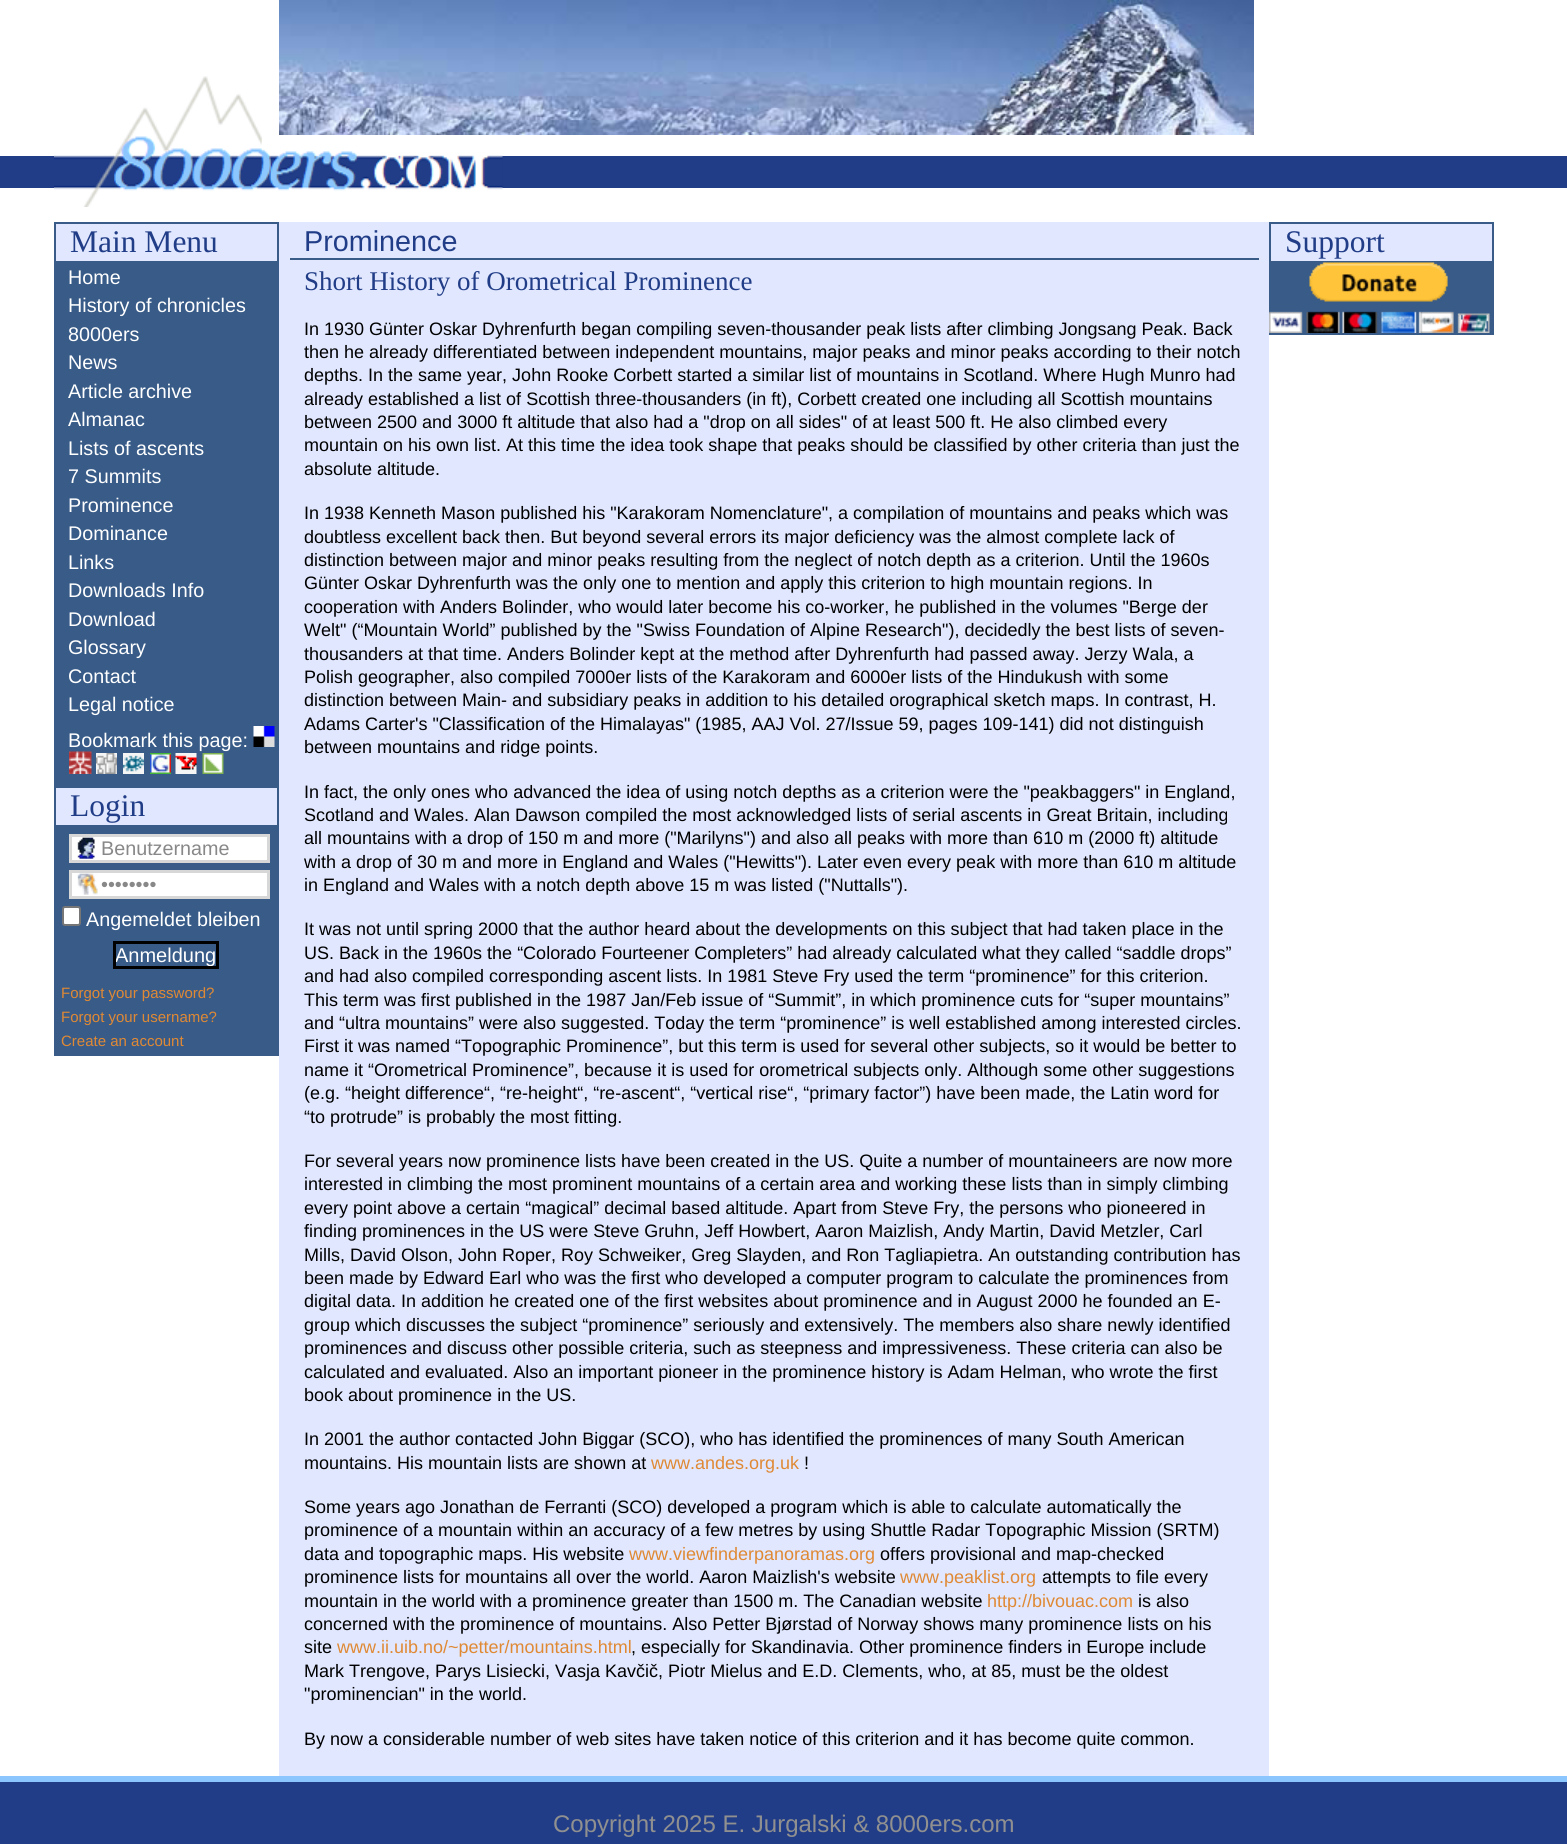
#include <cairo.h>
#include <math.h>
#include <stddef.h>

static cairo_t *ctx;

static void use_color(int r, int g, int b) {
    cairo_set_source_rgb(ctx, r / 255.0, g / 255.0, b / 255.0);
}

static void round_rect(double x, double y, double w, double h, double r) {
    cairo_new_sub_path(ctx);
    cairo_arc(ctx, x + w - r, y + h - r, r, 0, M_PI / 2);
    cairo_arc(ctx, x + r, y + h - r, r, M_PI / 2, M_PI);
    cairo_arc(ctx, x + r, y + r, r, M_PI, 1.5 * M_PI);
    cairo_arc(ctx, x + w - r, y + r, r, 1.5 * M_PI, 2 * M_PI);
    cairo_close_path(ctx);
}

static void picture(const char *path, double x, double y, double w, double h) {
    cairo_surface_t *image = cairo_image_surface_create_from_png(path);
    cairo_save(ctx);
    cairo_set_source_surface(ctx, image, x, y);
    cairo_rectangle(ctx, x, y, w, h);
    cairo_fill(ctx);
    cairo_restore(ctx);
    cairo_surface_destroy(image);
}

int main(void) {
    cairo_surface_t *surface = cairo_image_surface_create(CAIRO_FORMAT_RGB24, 1567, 1844);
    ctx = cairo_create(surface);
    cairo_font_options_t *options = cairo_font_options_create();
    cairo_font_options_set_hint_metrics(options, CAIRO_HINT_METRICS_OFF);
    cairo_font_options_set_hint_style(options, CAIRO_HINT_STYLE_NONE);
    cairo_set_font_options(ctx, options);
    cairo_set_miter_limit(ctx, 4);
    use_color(255, 255, 255);
    cairo_paint(ctx);
    use_color(33, 61, 135);
    cairo_rectangle(ctx, 0, 156, 1567, 32);
    cairo_fill(ctx);
    picture("img1.png", 54, 76, 449, 131);
    picture("img2.png", 279, 0, 975, 135);
    use_color(224, 231, 254);
    cairo_rectangle(ctx, 55, 223, 223, 39);
    cairo_fill_preserve(ctx);
    use_color(56, 91, 136);
    cairo_stroke(ctx);
    cairo_select_font_face(ctx, "Liberation Serif", CAIRO_FONT_SLANT_NORMAL, CAIRO_FONT_WEIGHT_NORMAL);
    cairo_set_font_size(ctx, 31.5);
    use_color(33, 61, 135);
    cairo_move_to(ctx, 70, 252);
    cairo_show_text(ctx, "Main Menu");
    use_color(56, 91, 136);
    cairo_rectangle(ctx, 54, 263, 225, 523);
    cairo_fill(ctx);
    cairo_select_font_face(ctx, "Liberation Sans", CAIRO_FONT_SLANT_NORMAL, CAIRO_FONT_WEIGHT_NORMAL);
    cairo_set_font_size(ctx, 19.75);
    use_color(255, 255, 255);
    cairo_move_to(ctx, 68, 284);
    cairo_show_text(ctx, "Home");
    cairo_move_to(ctx, 68, 312);
    cairo_show_text(ctx, "History of chronicles");
    cairo_move_to(ctx, 68, 341);
    cairo_show_text(ctx, "8000ers");
    cairo_move_to(ctx, 68, 369);
    cairo_show_text(ctx, "News");
    cairo_move_to(ctx, 68, 398);
    cairo_show_text(ctx, "Article archive");
    cairo_move_to(ctx, 68, 426);
    cairo_show_text(ctx, "Almanac");
    cairo_move_to(ctx, 68, 455);
    cairo_show_text(ctx, "Lists of ascents");
    cairo_move_to(ctx, 68, 483);
    cairo_show_text(ctx, "7 Summits");
    cairo_move_to(ctx, 68, 512);
    cairo_show_text(ctx, "Prominence");
    cairo_move_to(ctx, 68, 540);
    cairo_show_text(ctx, "Dominance");
    cairo_move_to(ctx, 68, 569);
    cairo_show_text(ctx, "Links");
    cairo_move_to(ctx, 68, 597);
    cairo_show_text(ctx, "Downloads Info");
    cairo_move_to(ctx, 68, 626);
    cairo_show_text(ctx, "Download");
    cairo_move_to(ctx, 68, 654);
    cairo_show_text(ctx, "Glossary");
    cairo_move_to(ctx, 68, 683);
    cairo_show_text(ctx, "Contact");
    cairo_move_to(ctx, 68, 711);
    cairo_show_text(ctx, "Legal notice");
    cairo_move_to(ctx, 68, 747);
    cairo_show_text(ctx, "Bookmark this page:");
    picture("img3.png", 253, 726, 22, 21);
    picture("img4.png", 69, 751, 23, 23);
    picture("img5.png", 96, 753, 21, 21);
    picture("img6.png", 123, 753, 21, 21);
    picture("img7.png", 150, 753, 21, 21);
    picture("img8.png", 175, 753, 22, 21);
    picture("img9.png", 202, 753, 22, 21);
    use_color(56, 91, 136);
    cairo_rectangle(ctx, 54, 827, 225, 229);
    cairo_fill(ctx);
    use_color(224, 231, 254);
    cairo_rectangle(ctx, 55, 787, 223, 39);
    cairo_fill_preserve(ctx);
    use_color(56, 91, 136);
    cairo_stroke(ctx);
    cairo_select_font_face(ctx, "Liberation Serif", CAIRO_FONT_SLANT_NORMAL, CAIRO_FONT_WEIGHT_NORMAL);
    cairo_set_font_size(ctx, 31.5);
    use_color(33, 61, 135);
    cairo_move_to(ctx, 70, 816);
    cairo_show_text(ctx, "Login");
    use_color(255, 255, 255);
    cairo_rectangle(ctx, 72, 837, 195, 23);
    cairo_fill(ctx);
    picture("img10.png", 77, 837, 18, 22);
    cairo_rectangle(ctx, 70.5, 835.5, 198, 26);
    use_color(215, 215, 215);
    cairo_set_line_width(ctx, 3);
    cairo_stroke(ctx);
    cairo_select_font_face(ctx, "Liberation Sans", CAIRO_FONT_SLANT_NORMAL, CAIRO_FONT_WEIGHT_NORMAL);
    cairo_set_font_size(ctx, 19.75);
    use_color(136, 136, 136);
    cairo_move_to(ctx, 101, 855);
    cairo_show_text(ctx, "Benutzername");
    use_color(255, 255, 255);
    cairo_rectangle(ctx, 72, 873, 195, 23);
    cairo_fill(ctx);
    picture("img11.png", 77, 873, 21, 22);
    cairo_rectangle(ctx, 70.5, 871.5, 198, 26);
    use_color(215, 215, 215);
    cairo_stroke(ctx);
    use_color(136, 136, 136);
    cairo_move_to(ctx, 101, 891);
    cairo_show_text(ctx, "••••••••");
    use_color(255, 255, 255);
    round_rect(63, 907, 17, 18, 2);
    cairo_fill_preserve(ctx);
    use_color(118, 118, 118);
    cairo_set_line_width(ctx, 2);
    cairo_stroke(ctx);
    use_color(255, 255, 255);
    cairo_move_to(ctx, 86, 926);
    cairo_show_text(ctx, "Angemeldet bleiben");
    cairo_rectangle(ctx, 114.5, 942.5, 103, 25);
    use_color(0, 0, 0);
    cairo_set_line_width(ctx, 3);
    cairo_stroke(ctx);
    cairo_save(ctx);
    cairo_rectangle(ctx, 116, 944, 100, 22);
    cairo_clip(ctx);
    cairo_set_font_size(ctx, 20);
    use_color(255, 255, 255);
    cairo_move_to(ctx, 115, 962);
    cairo_show_text(ctx, "Anmeldung");
    cairo_restore(ctx);
    cairo_set_font_size(ctx, 15);
    use_color(224, 137, 52);
    cairo_move_to(ctx, 61, 998);
    cairo_show_text(ctx, "Forgot your password?");
    cairo_move_to(ctx, 61, 1022);
    cairo_show_text(ctx, "Forgot your username?");
    cairo_move_to(ctx, 61, 1046);
    cairo_show_text(ctx, "Create an account");
    use_color(224, 231, 254);
    cairo_rectangle(ctx, 279, 222, 990, 1554);
    cairo_fill(ctx);
    use_color(56, 91, 136);
    cairo_rectangle(ctx, 290, 258, 969, 2);
    cairo_fill(ctx);
    cairo_set_font_size(ctx, 28.75);
    use_color(33, 61, 135);
    cairo_move_to(ctx, 304, 251);
    cairo_show_text(ctx, "Prominence");
    cairo_select_font_face(ctx, "Liberation Serif", CAIRO_FONT_SLANT_NORMAL, CAIRO_FONT_WEIGHT_NORMAL);
    cairo_set_font_size(ctx, 27);
    cairo_move_to(ctx, 304, 290);
    cairo_show_text(ctx, "Short History of Orometrical Prominence");
    cairo_select_font_face(ctx, "Liberation Sans", CAIRO_FONT_SLANT_NORMAL, CAIRO_FONT_WEIGHT_NORMAL);
    cairo_set_font_size(ctx, 18);
    use_color(0, 0, 0);
    cairo_move_to(ctx, 304, 335);
    cairo_show_text(ctx, "In 1930 Günter Oskar Dyhrenfurth began compiling seven-thousander peak lists after climbing Jongsang Peak. Back");
    cairo_move_to(ctx, 304, 358);
    cairo_show_text(ctx, "then he already differentiated between independent mountains, major peaks and minor peaks according to their notch");
    cairo_move_to(ctx, 304, 381);
    cairo_show_text(ctx, "depths. In the same year, John Rooke Corbett started a similar list of mountains in Scotland. Where Hugh Munro had");
    cairo_move_to(ctx, 304, 405);
    cairo_show_text(ctx, "already established a list of Scottish three-thousanders (in ft), Corbett created one including all Scottish mountains");
    cairo_move_to(ctx, 304, 428);
    cairo_show_text(ctx, "between 2500 and 3000 ft altitude that also had a \"drop on all sides\" of at least 500 ft. He also climbed every");
    cairo_move_to(ctx, 304, 451);
    cairo_show_text(ctx, "mountain on his own list. At this time the idea took shape that peaks should be classified by other criteria than just the");
    cairo_move_to(ctx, 304, 475);
    cairo_show_text(ctx, "absolute altitude.");
    cairo_move_to(ctx, 304, 519);
    cairo_show_text(ctx, "In 1938 Kenneth Mason published his \"Karakoram Nomenclature\", a compilation of mountains and peaks which was");
    cairo_move_to(ctx, 304, 543);
    cairo_show_text(ctx, "doubtless excellent back then. But beyond several errors its major deficiency was the almost complete lack of");
    cairo_move_to(ctx, 304, 566);
    cairo_show_text(ctx, "distinction between major and minor peaks resulting from the neglect of notch depth as a criterion. Until the 1960s");
    cairo_move_to(ctx, 304, 589);
    cairo_show_text(ctx, "Günter Oskar Dyhrenfurth was the only one to mention and apply this criterion to high mountain regions. In");
    cairo_move_to(ctx, 304, 613);
    cairo_show_text(ctx, "cooperation with Anders Bolinder, who would later become his co-worker, he published in the volumes \"Berge der");
    cairo_move_to(ctx, 304, 636);
    cairo_show_text(ctx, "Welt\" (“Mountain World” published by the \"Swiss Foundation of Alpine Research\"), decidedly the best lists of seven-");
    cairo_move_to(ctx, 304, 660);
    cairo_show_text(ctx, "thousanders at that time. Anders Bolinder kept at the method after Dyhrenfurth had passed away. Jerzy Wala, a");
    cairo_move_to(ctx, 304, 683);
    cairo_show_text(ctx, "Polish geographer, also compiled 7000er lists of the Karakoram and 6000er lists of the Hindukush with some");
    cairo_move_to(ctx, 304, 706);
    cairo_show_text(ctx, "distinction between Main- and subsidiary peaks in addition to his detailed orographical sketch maps. In contrast, H.");
    cairo_move_to(ctx, 304, 730);
    cairo_show_text(ctx, "Adams Carter's \"Classification of the Himalayas\" (1985, AAJ Vol. 27/Issue 59, pages 109-141) did not distinguish");
    cairo_move_to(ctx, 304, 753);
    cairo_show_text(ctx, "between mountains and ridge points.");
    cairo_move_to(ctx, 304, 798);
    cairo_show_text(ctx, "In fact, the only ones who advanced the idea of using notch depths as a criterion were the \"peakbaggers\" in England,");
    cairo_move_to(ctx, 304, 821);
    cairo_show_text(ctx, "Scotland and Wales. Alan Dawson compiled the most acknowledged lists of serial ascents in Great Britain, including");
    cairo_move_to(ctx, 304, 844);
    cairo_show_text(ctx, "all mountains with a drop of 150 m and more (\"Marilyns\") and also all peaks with more than 610 m (2000 ft) altitude");
    cairo_move_to(ctx, 304, 868);
    cairo_show_text(ctx, "with a drop of 30 m and more in England and Wales (\"Hewitts\"). Later even every peak with more than 610 m altitude");
    cairo_move_to(ctx, 304, 891);
    cairo_show_text(ctx, "in England and Wales with a notch depth above 15 m was listed (\"Nuttalls\").");
    cairo_move_to(ctx, 304, 935);
    cairo_show_text(ctx, "It was not until spring 2000 that the author heard about the developments on this subject that had taken place in the");
    cairo_move_to(ctx, 304, 959);
    cairo_show_text(ctx, "US. Back in the 1960s the “Colorado Fourteener Completers” had already calculated what they called “saddle drops”");
    cairo_move_to(ctx, 304, 982);
    cairo_show_text(ctx, "and had also compiled corresponding ascent lists. In 1981 Steve Fry used the term “prominence” for this criterion.");
    cairo_move_to(ctx, 304, 1006);
    cairo_show_text(ctx, "This term was first published in the 1987 Jan/Feb issue of “Summit”, in which prominence cuts for “super mountains”");
    cairo_move_to(ctx, 304, 1029);
    cairo_show_text(ctx, "and “ultra mountains” were also suggested. Today the term “prominence” is well established among interested circles.");
    cairo_move_to(ctx, 304, 1052);
    cairo_show_text(ctx, "First it was named “Topographic Prominence”, but this term is used for several other subjects, so it would be better to");
    cairo_move_to(ctx, 304, 1076);
    cairo_show_text(ctx, "name it “Orometrical Prominence”, because it is used for orometrical subjects only. Although some other suggestions");
    cairo_move_to(ctx, 304, 1099);
    cairo_show_text(ctx, "(e.g. “height difference“, “re-height“, “re-ascent“, “vertical rise“, “primary factor”) have been made, the Latin word for");
    cairo_move_to(ctx, 304, 1123);
    cairo_show_text(ctx, "“to protrude” is probably the most fitting.");
    cairo_move_to(ctx, 304, 1167);
    cairo_show_text(ctx, "For several years now prominence lists have been created in the US. Quite a number of mountaineers are now more");
    cairo_move_to(ctx, 304, 1190);
    cairo_show_text(ctx, "interested in climbing the most prominent mountains of a certain area and working these lists than in simply climbing");
    cairo_move_to(ctx, 304, 1214);
    cairo_show_text(ctx, "every point above a certain “magical” decimal based altitude. Apart from Steve Fry, the persons who pioneered in");
    cairo_move_to(ctx, 304, 1237);
    cairo_show_text(ctx, "finding prominences in the US were Steve Gruhn, Jeff Howbert, Aaron Maizlish, Andy Martin, David Metzler, Carl");
    cairo_move_to(ctx, 304, 1261);
    cairo_show_text(ctx, "Mills, David Olson, John Roper, Roy Schweiker, Greg Slayden, and Ron Tagliapietra. An outstanding contribution has");
    cairo_move_to(ctx, 304, 1284);
    cairo_show_text(ctx, "been made by Edward Earl who was the first who developed a computer program to calculate the prominences from");
    cairo_move_to(ctx, 304, 1307);
    cairo_show_text(ctx, "digital data. In addition he created one of the first websites about prominence and in August 2000 he founded an E-");
    cairo_move_to(ctx, 304, 1331);
    cairo_show_text(ctx, "group which discusses the subject “prominence” seriously and extensively. The members also share newly identified");
    cairo_move_to(ctx, 304, 1354);
    cairo_show_text(ctx, "prominences and discuss other possible criteria, such as steepness and impressiveness. These criteria can also be");
    cairo_move_to(ctx, 304, 1378);
    cairo_show_text(ctx, "calculated and evaluated. Also an important pioneer in the prominence history is Adam Helman, who wrote the first");
    cairo_move_to(ctx, 304, 1401);
    cairo_show_text(ctx, "book about prominence in the US.");
    cairo_move_to(ctx, 304, 1445);
    cairo_show_text(ctx, "In 2001 the author contacted John Biggar (SCO), who has identified the prominences of many South American");
    cairo_move_to(ctx, 304, 1469);
    cairo_show_text(ctx, "mountains. His mountain lists are shown at");
    use_color(224, 137, 52);
    cairo_move_to(ctx, 651, 1469);
    cairo_show_text(ctx, "www.andes.org.uk");
    use_color(0, 0, 0);
    cairo_move_to(ctx, 804, 1469);
    cairo_show_text(ctx, "!");
    cairo_move_to(ctx, 304, 1513);
    cairo_show_text(ctx, "Some years ago Jonathan de Ferranti (SCO) developed a program which is able to calculate automatically the");
    cairo_move_to(ctx, 304, 1536);
    cairo_show_text(ctx, "prominence of a mountain within an accuracy of a few metres by using Shuttle Radar Topographic Mission (SRTM)");
    cairo_move_to(ctx, 304, 1560);
    cairo_show_text(ctx, "data and topographic maps. His website");
    use_color(224, 137, 52);
    cairo_move_to(ctx, 629, 1560);
    cairo_show_text(ctx, "www.viewfinderpanoramas.org");
    use_color(0, 0, 0);
    cairo_move_to(ctx, 880, 1560);
    cairo_show_text(ctx, "offers provisional and map-checked");
    cairo_move_to(ctx, 304, 1583);
    cairo_show_text(ctx, "prominence lists for mountains all over the world. Aaron Maizlish's website");
    use_color(224, 137, 52);
    cairo_move_to(ctx, 900, 1583);
    cairo_show_text(ctx, "www.peaklist.org");
    use_color(0, 0, 0);
    cairo_move_to(ctx, 1042, 1583);
    cairo_show_text(ctx, "attempts to file every");
    cairo_move_to(ctx, 304, 1607);
    cairo_show_text(ctx, "mountain in the world with a prominence greater than 1500 m. The Canadian website");
    use_color(224, 137, 52);
    cairo_move_to(ctx, 987, 1607);
    cairo_show_text(ctx, "http://bivouac.com");
    use_color(0, 0, 0);
    cairo_move_to(ctx, 1138, 1607);
    cairo_show_text(ctx, "is also");
    cairo_move_to(ctx, 304, 1630);
    cairo_show_text(ctx, "concerned with the prominence of mountains. Also Petter Bjørstad of Norway shows many prominence lists on his");
    cairo_move_to(ctx, 304, 1653);
    cairo_show_text(ctx, "site");
    use_color(224, 137, 52);
    cairo_move_to(ctx, 337, 1653);
    cairo_show_text(ctx, "www.ii.uib.no/~petter/mountains.html");
    use_color(0, 0, 0);
    cairo_move_to(ctx, 631, 1653);
    cairo_show_text(ctx, ", especially for Skandinavia. Other prominence finders in Europe include");
    cairo_move_to(ctx, 304, 1677);
    cairo_show_text(ctx, "Mark Trengove, Parys Lisiecki, Vasja Kavčič, Piotr Mielus and E.D. Clements, who, at 85, must be the oldest");
    cairo_move_to(ctx, 304, 1700);
    cairo_show_text(ctx, "\"prominencian\" in the world.");
    cairo_move_to(ctx, 304, 1745);
    cairo_show_text(ctx, "By now a considerable number of web sites have taken notice of this criterion and it has become quite common.");
    use_color(56, 91, 136);
    cairo_rectangle(ctx, 1269, 263, 225, 72);
    cairo_fill(ctx);
    use_color(224, 231, 254);
    cairo_rectangle(ctx, 1270, 223, 223, 39);
    cairo_fill_preserve(ctx);
    use_color(56, 91, 136);
    cairo_set_line_width(ctx, 2);
    cairo_stroke(ctx);
    cairo_select_font_face(ctx, "Liberation Serif", CAIRO_FONT_SLANT_NORMAL, CAIRO_FONT_WEIGHT_NORMAL);
    cairo_set_font_size(ctx, 31.5);
    use_color(33, 61, 135);
    cairo_move_to(ctx, 1285, 252);
    cairo_show_text(ctx, "Support");
    picture("img12.png", 1269, 262, 221, 71);
    cairo_rectangle(ctx, 0, 1782, 1567, 62);
    cairo_fill(ctx);
    use_color(140, 198, 255);
    cairo_rectangle(ctx, 0, 1776, 1567, 6);
    cairo_fill(ctx);
    cairo_select_font_face(ctx, "Liberation Sans", CAIRO_FONT_SLANT_NORMAL, CAIRO_FONT_WEIGHT_NORMAL);
    cairo_set_font_size(ctx, 24);
    use_color(144, 144, 144);
    cairo_move_to(ctx, 553, 1832);
    cairo_show_text(ctx, "Copyright 2025 E. Jurgalski & 8000ers.com");
    cairo_surface_write_to_png(surface, "result.png");
    cairo_font_options_destroy(options);
    cairo_destroy(ctx);
    cairo_surface_destroy(surface);
    return 0;
}
